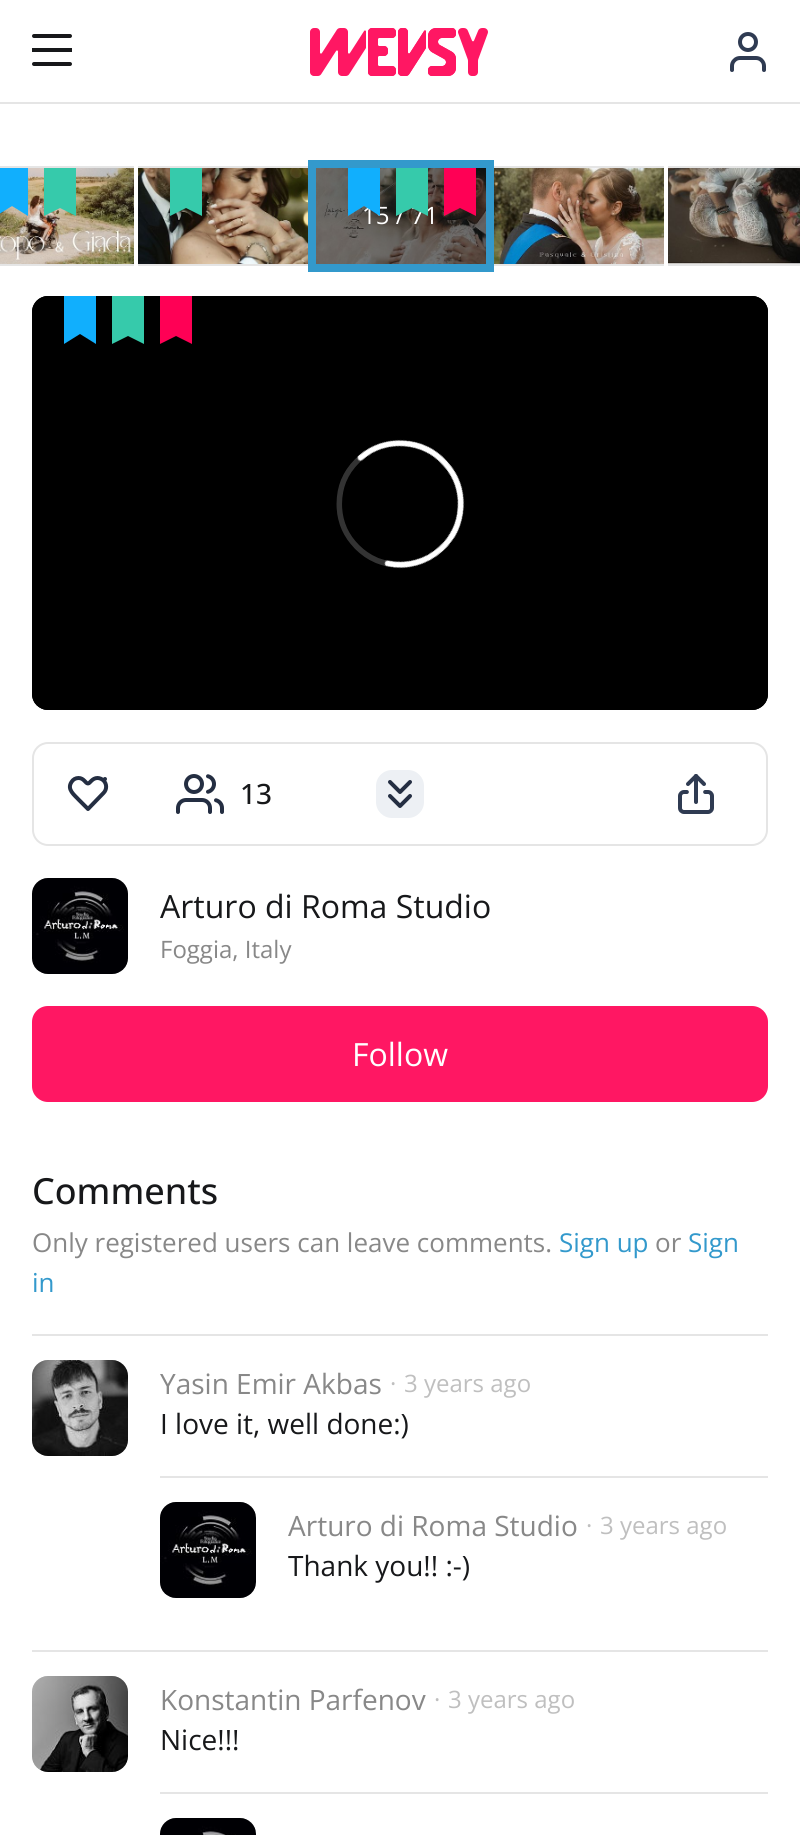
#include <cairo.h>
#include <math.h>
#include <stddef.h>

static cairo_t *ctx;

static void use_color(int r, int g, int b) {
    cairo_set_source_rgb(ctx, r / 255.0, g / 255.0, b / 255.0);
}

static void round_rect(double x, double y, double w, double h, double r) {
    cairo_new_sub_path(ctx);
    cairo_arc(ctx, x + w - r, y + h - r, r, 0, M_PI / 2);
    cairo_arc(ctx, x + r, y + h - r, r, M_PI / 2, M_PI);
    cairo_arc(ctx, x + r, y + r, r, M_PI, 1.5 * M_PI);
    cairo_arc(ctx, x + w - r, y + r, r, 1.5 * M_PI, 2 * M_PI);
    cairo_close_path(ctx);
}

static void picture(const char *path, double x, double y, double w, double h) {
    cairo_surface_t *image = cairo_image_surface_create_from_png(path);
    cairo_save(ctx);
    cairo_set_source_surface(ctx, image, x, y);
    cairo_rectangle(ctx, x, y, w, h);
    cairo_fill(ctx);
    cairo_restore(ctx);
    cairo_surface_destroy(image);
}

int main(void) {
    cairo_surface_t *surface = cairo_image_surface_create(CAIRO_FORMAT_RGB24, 800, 1835);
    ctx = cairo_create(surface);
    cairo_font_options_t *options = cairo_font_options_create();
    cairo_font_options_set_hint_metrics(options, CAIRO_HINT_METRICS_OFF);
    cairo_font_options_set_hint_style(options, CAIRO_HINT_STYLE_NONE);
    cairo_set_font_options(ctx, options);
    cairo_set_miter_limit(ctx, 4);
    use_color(255, 255, 255);
    cairo_paint(ctx);
    use_color(229, 229, 229);
    cairo_rectangle(ctx, 0, 102, 800, 2);
    cairo_fill(ctx);
    use_color(23, 24, 26);
    cairo_rectangle(ctx, 32, 48, 40, 4);
    cairo_fill(ctx);
    round_rect(32, 34, 40, 4, 2);
    cairo_fill(ctx);
    round_rect(32, 62, 40, 4, 2);
    cairo_fill(ctx);
    picture("img1.png", 310, 28, 178, 48);
    picture("img2.png", 730, 32, 36, 40);
    use_color(229, 229, 229);
    cairo_rectangle(ctx, 0, 166, 134, 2);
    cairo_fill(ctx);
    cairo_rectangle(ctx, 0, 264, 134, 2);
    cairo_fill(ctx);
    picture("img3.png", 0, 168, 134, 96);
    use_color(17, 175, 253);
    cairo_new_path(ctx);
    cairo_move_to(ctx, -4, 168);
    cairo_line_to(ctx, -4, 216);
    cairo_line_to(ctx, 12, 206);
    cairo_line_to(ctx, 28, 216);
    cairo_line_to(ctx, 28, 168);
    cairo_close_path(ctx);
    cairo_fill(ctx);
    use_color(54, 202, 171);
    cairo_new_path(ctx);
    cairo_move_to(ctx, 44, 168);
    cairo_line_to(ctx, 44, 216);
    cairo_line_to(ctx, 60, 208);
    cairo_line_to(ctx, 76, 216);
    cairo_line_to(ctx, 76, 168);
    cairo_close_path(ctx);
    cairo_fill(ctx);
    use_color(229, 229, 229);
    cairo_rectangle(ctx, 138, 166, 170, 2);
    cairo_fill(ctx);
    cairo_rectangle(ctx, 138, 264, 170, 2);
    cairo_fill(ctx);
    picture("img4.png", 138, 168, 170, 96);
    use_color(54, 202, 171);
    cairo_new_path(ctx);
    cairo_move_to(ctx, 170, 168);
    cairo_line_to(ctx, 170, 216);
    cairo_line_to(ctx, 186, 208);
    cairo_line_to(ctx, 202, 216);
    cairo_line_to(ctx, 202, 168);
    cairo_close_path(ctx);
    cairo_fill(ctx);
    cairo_rectangle(ctx, 312, 164, 178, 104);
    use_color(51, 153, 204);
    cairo_set_line_width(ctx, 8);
    cairo_stroke(ctx);
    use_color(23, 24, 26);
    cairo_rectangle(ctx, 316, 168, 170, 96);
    cairo_fill(ctx);
    picture("img5.png", 316, 168, 170, 96);
    cairo_select_font_face(ctx, "Open Sans", CAIRO_FONT_SLANT_NORMAL, CAIRO_FONT_WEIGHT_NORMAL);
    cairo_set_font_size(ctx, 24);
    use_color(255, 255, 255);
    cairo_move_to(ctx, 362, 224);
    cairo_show_text(ctx, "15 / 71");
    use_color(17, 175, 253);
    cairo_new_path(ctx);
    cairo_move_to(ctx, 348, 168);
    cairo_line_to(ctx, 348, 216);
    cairo_line_to(ctx, 364, 206);
    cairo_line_to(ctx, 380, 216);
    cairo_line_to(ctx, 380, 168);
    cairo_close_path(ctx);
    cairo_fill(ctx);
    use_color(54, 202, 171);
    cairo_new_path(ctx);
    cairo_move_to(ctx, 396, 168);
    cairo_line_to(ctx, 396, 216);
    cairo_line_to(ctx, 412, 208);
    cairo_line_to(ctx, 428, 216);
    cairo_line_to(ctx, 428, 168);
    cairo_close_path(ctx);
    cairo_fill(ctx);
    use_color(255, 0, 85);
    cairo_new_path(ctx);
    cairo_move_to(ctx, 444, 168);
    cairo_line_to(ctx, 444, 216);
    cairo_line_to(ctx, 460, 208);
    cairo_line_to(ctx, 476, 216);
    cairo_line_to(ctx, 476, 168);
    cairo_close_path(ctx);
    cairo_fill(ctx);
    use_color(229, 229, 229);
    cairo_rectangle(ctx, 494, 166, 170, 2);
    cairo_fill(ctx);
    cairo_rectangle(ctx, 494, 264, 170, 2);
    cairo_fill(ctx);
    picture("img6.png", 494, 168, 170, 96);
    cairo_rectangle(ctx, 668, 166, 132, 2);
    cairo_fill(ctx);
    cairo_rectangle(ctx, 668, 264, 132, 2);
    cairo_fill(ctx);
    picture("img7.png", 668, 168, 132, 96);
    use_color(0, 0, 0);
    round_rect(32, 296, 736, 414, 16);
    cairo_fill(ctx);
    picture("img8.png", 32, 296, 736, 414);
    use_color(17, 175, 253);
    cairo_new_path(ctx);
    cairo_move_to(ctx, 64, 296);
    cairo_line_to(ctx, 64, 344);
    cairo_line_to(ctx, 80, 334);
    cairo_line_to(ctx, 96, 344);
    cairo_line_to(ctx, 96, 296);
    cairo_close_path(ctx);
    cairo_fill(ctx);
    use_color(54, 202, 171);
    cairo_new_path(ctx);
    cairo_move_to(ctx, 112, 296);
    cairo_line_to(ctx, 112, 344);
    cairo_line_to(ctx, 128, 336);
    cairo_line_to(ctx, 144, 344);
    cairo_line_to(ctx, 144, 296);
    cairo_close_path(ctx);
    cairo_fill(ctx);
    use_color(255, 0, 85);
    cairo_new_path(ctx);
    cairo_move_to(ctx, 160, 296);
    cairo_line_to(ctx, 160, 344);
    cairo_line_to(ctx, 176, 336);
    cairo_line_to(ctx, 192, 344);
    cairo_line_to(ctx, 192, 296);
    cairo_close_path(ctx);
    cairo_fill(ctx);
    round_rect(33, 743, 734, 102, 15);
    use_color(229, 229, 229);
    cairo_set_line_width(ctx, 2);
    cairo_stroke(ctx);
    cairo_new_path(ctx);
    cairo_move_to(ctx, 97.5, 778);
    cairo_curve_to(ctx, 99.5, 778, 102, 779, 103.5, 780.5);
    cairo_line_to(ctx, 105, 779);
    cairo_line_to(ctx, 103.5, 780.5);
    cairo_curve_to(ctx, 107, 784, 107, 789.5, 103.5, 793);
    cairo_line_to(ctx, 88, 809);
    cairo_line_to(ctx, 79, 800);
    cairo_curve_to(ctx, 74.5, 795, 66.5, 789.5, 71.5, 782);
    cairo_curve_to(ctx, 73, 779.5, 75.5, 778, 78.5, 778);
    cairo_curve_to(ctx, 84, 778, 85.5, 783.5, 88, 783.5);
    cairo_curve_to(ctx, 90, 783.5, 92, 778, 97.5, 778);
    cairo_close_path(ctx);
    use_color(36, 46, 66);
    cairo_set_line_width(ctx, 4);
    cairo_set_line_cap(ctx, CAIRO_LINE_CAP_ROUND);
    cairo_set_line_join(ctx, CAIRO_LINE_JOIN_ROUND);
    cairo_stroke(ctx);
    picture("img9.png", 176, 774, 48, 40);
    cairo_select_font_face(ctx, "Open Sans Medium", CAIRO_FONT_SLANT_NORMAL, CAIRO_FONT_WEIGHT_NORMAL);
    cairo_set_font_size(ctx, 28);
    use_color(23, 24, 26);
    cairo_move_to(ctx, 240, 804);
    cairo_show_text(ctx, "13");
    picture("img10.png", 376, 770, 48, 48);
    picture("img11.png", 678, 774, 36, 40);
    round_rect(33, 879, 94, 94, 15);
    use_color(229, 229, 229);
    cairo_set_line_width(ctx, 2);
    cairo_set_line_cap(ctx, CAIRO_LINE_CAP_BUTT);
    cairo_set_line_join(ctx, CAIRO_LINE_JOIN_MITER);
    cairo_stroke(ctx);
    picture("img12.png", 32, 878, 96, 96);
    cairo_select_font_face(ctx, "Open Sans", CAIRO_FONT_SLANT_NORMAL, CAIRO_FONT_WEIGHT_NORMAL);
    cairo_set_font_size(ctx, 32);
    use_color(23, 24, 26);
    cairo_move_to(ctx, 160, 918);
    cairo_show_text(ctx, "Arturo di Roma Studio");
    cairo_set_font_size(ctx, 24);
    use_color(136, 136, 136);
    cairo_move_to(ctx, 160, 958);
    cairo_show_text(ctx, "Foggia, Italy");
    use_color(255, 23, 99);
    round_rect(32, 1006, 736, 96, 16);
    cairo_fill(ctx);
    cairo_set_font_size(ctx, 32);
    use_color(255, 255, 255);
    cairo_move_to(ctx, 352, 1066);
    cairo_show_text(ctx, "Follow");
    cairo_select_font_face(ctx, "Open Sans Medium", CAIRO_FONT_SLANT_NORMAL, CAIRO_FONT_WEIGHT_NORMAL);
    cairo_set_font_size(ctx, 36);
    use_color(23, 24, 26);
    cairo_move_to(ctx, 32, 1204);
    cairo_show_text(ctx, "Comments");
    cairo_select_font_face(ctx, "Open Sans", CAIRO_FONT_SLANT_NORMAL, CAIRO_FONT_WEIGHT_NORMAL);
    cairo_set_font_size(ctx, 26);
    use_color(136, 136, 136);
    cairo_move_to(ctx, 32, 1252);
    cairo_show_text(ctx, "Only registered users can leave comments.");
    use_color(51, 153, 204);
    cairo_move_to(ctx, 559, 1252);
    cairo_show_text(ctx, "Sign up");
    use_color(136, 136, 136);
    cairo_move_to(ctx, 655, 1252);
    cairo_show_text(ctx, "or");
    use_color(51, 153, 204);
    cairo_move_to(ctx, 688, 1252);
    cairo_show_text(ctx, "Sign");
    cairo_move_to(ctx, 32, 1292);
    cairo_show_text(ctx, "in");
    use_color(229, 229, 229);
    cairo_rectangle(ctx, 32, 1334, 736, 2);
    cairo_fill(ctx);
    round_rect(33, 1361, 94, 94, 15);
    cairo_stroke(ctx);
    picture("img13.png", 32, 1360, 96, 96);
    cairo_set_font_size(ctx, 28);
    use_color(136, 136, 136);
    cairo_move_to(ctx, 160, 1394);
    cairo_show_text(ctx, "Yasin Emir Akbas");
    cairo_set_font_size(ctx, 24);
    use_color(191, 191, 191);
    cairo_move_to(ctx, 390, 1392);
    cairo_show_text(ctx, "·");
    cairo_move_to(ctx, 404, 1392);
    cairo_show_text(ctx, "3 years ago");
    cairo_set_font_size(ctx, 28);
    use_color(23, 24, 26);
    cairo_move_to(ctx, 160, 1434);
    cairo_show_text(ctx, "I love it, well done:)");
    use_color(229, 229, 229);
    cairo_rectangle(ctx, 160, 1476, 608, 2);
    cairo_fill(ctx);
    round_rect(161, 1503, 94, 94, 15);
    cairo_stroke(ctx);
    picture("img14.png", 160, 1502, 96, 96);
    use_color(136, 136, 136);
    cairo_move_to(ctx, 288, 1536);
    cairo_show_text(ctx, "Arturo di Roma Studio");
    cairo_set_font_size(ctx, 24);
    use_color(191, 191, 191);
    cairo_move_to(ctx, 586, 1534);
    cairo_show_text(ctx, "·");
    cairo_move_to(ctx, 600, 1534);
    cairo_show_text(ctx, "3 years ago");
    cairo_set_font_size(ctx, 28);
    use_color(23, 24, 26);
    cairo_move_to(ctx, 288, 1576);
    cairo_show_text(ctx, "Thank you!! :-)");
    use_color(229, 229, 229);
    cairo_rectangle(ctx, 32, 1650, 736, 2);
    cairo_fill(ctx);
    round_rect(33, 1677, 94, 94, 15);
    cairo_stroke(ctx);
    picture("img15.png", 32, 1676, 96, 96);
    use_color(136, 136, 136);
    cairo_move_to(ctx, 160, 1710);
    cairo_show_text(ctx, "Konstantin Parfenov");
    cairo_set_font_size(ctx, 24);
    use_color(191, 191, 191);
    cairo_move_to(ctx, 434, 1708);
    cairo_show_text(ctx, "·");
    cairo_move_to(ctx, 448, 1708);
    cairo_show_text(ctx, "3 years ago");
    cairo_set_font_size(ctx, 28);
    use_color(23, 24, 26);
    cairo_move_to(ctx, 160, 1750);
    cairo_show_text(ctx, "Nice!!!");
    use_color(229, 229, 229);
    cairo_rectangle(ctx, 160, 1792, 608, 2);
    cairo_fill(ctx);
    round_rect(161, 1819, 94, 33, 15);
    cairo_stroke(ctx);
    picture("img16.png", 160, 1818, 96, 17);
    cairo_surface_write_to_png(surface, "result.png");
    cairo_font_options_destroy(options);
    cairo_destroy(ctx);
    cairo_surface_destroy(surface);
    return 0;
}
